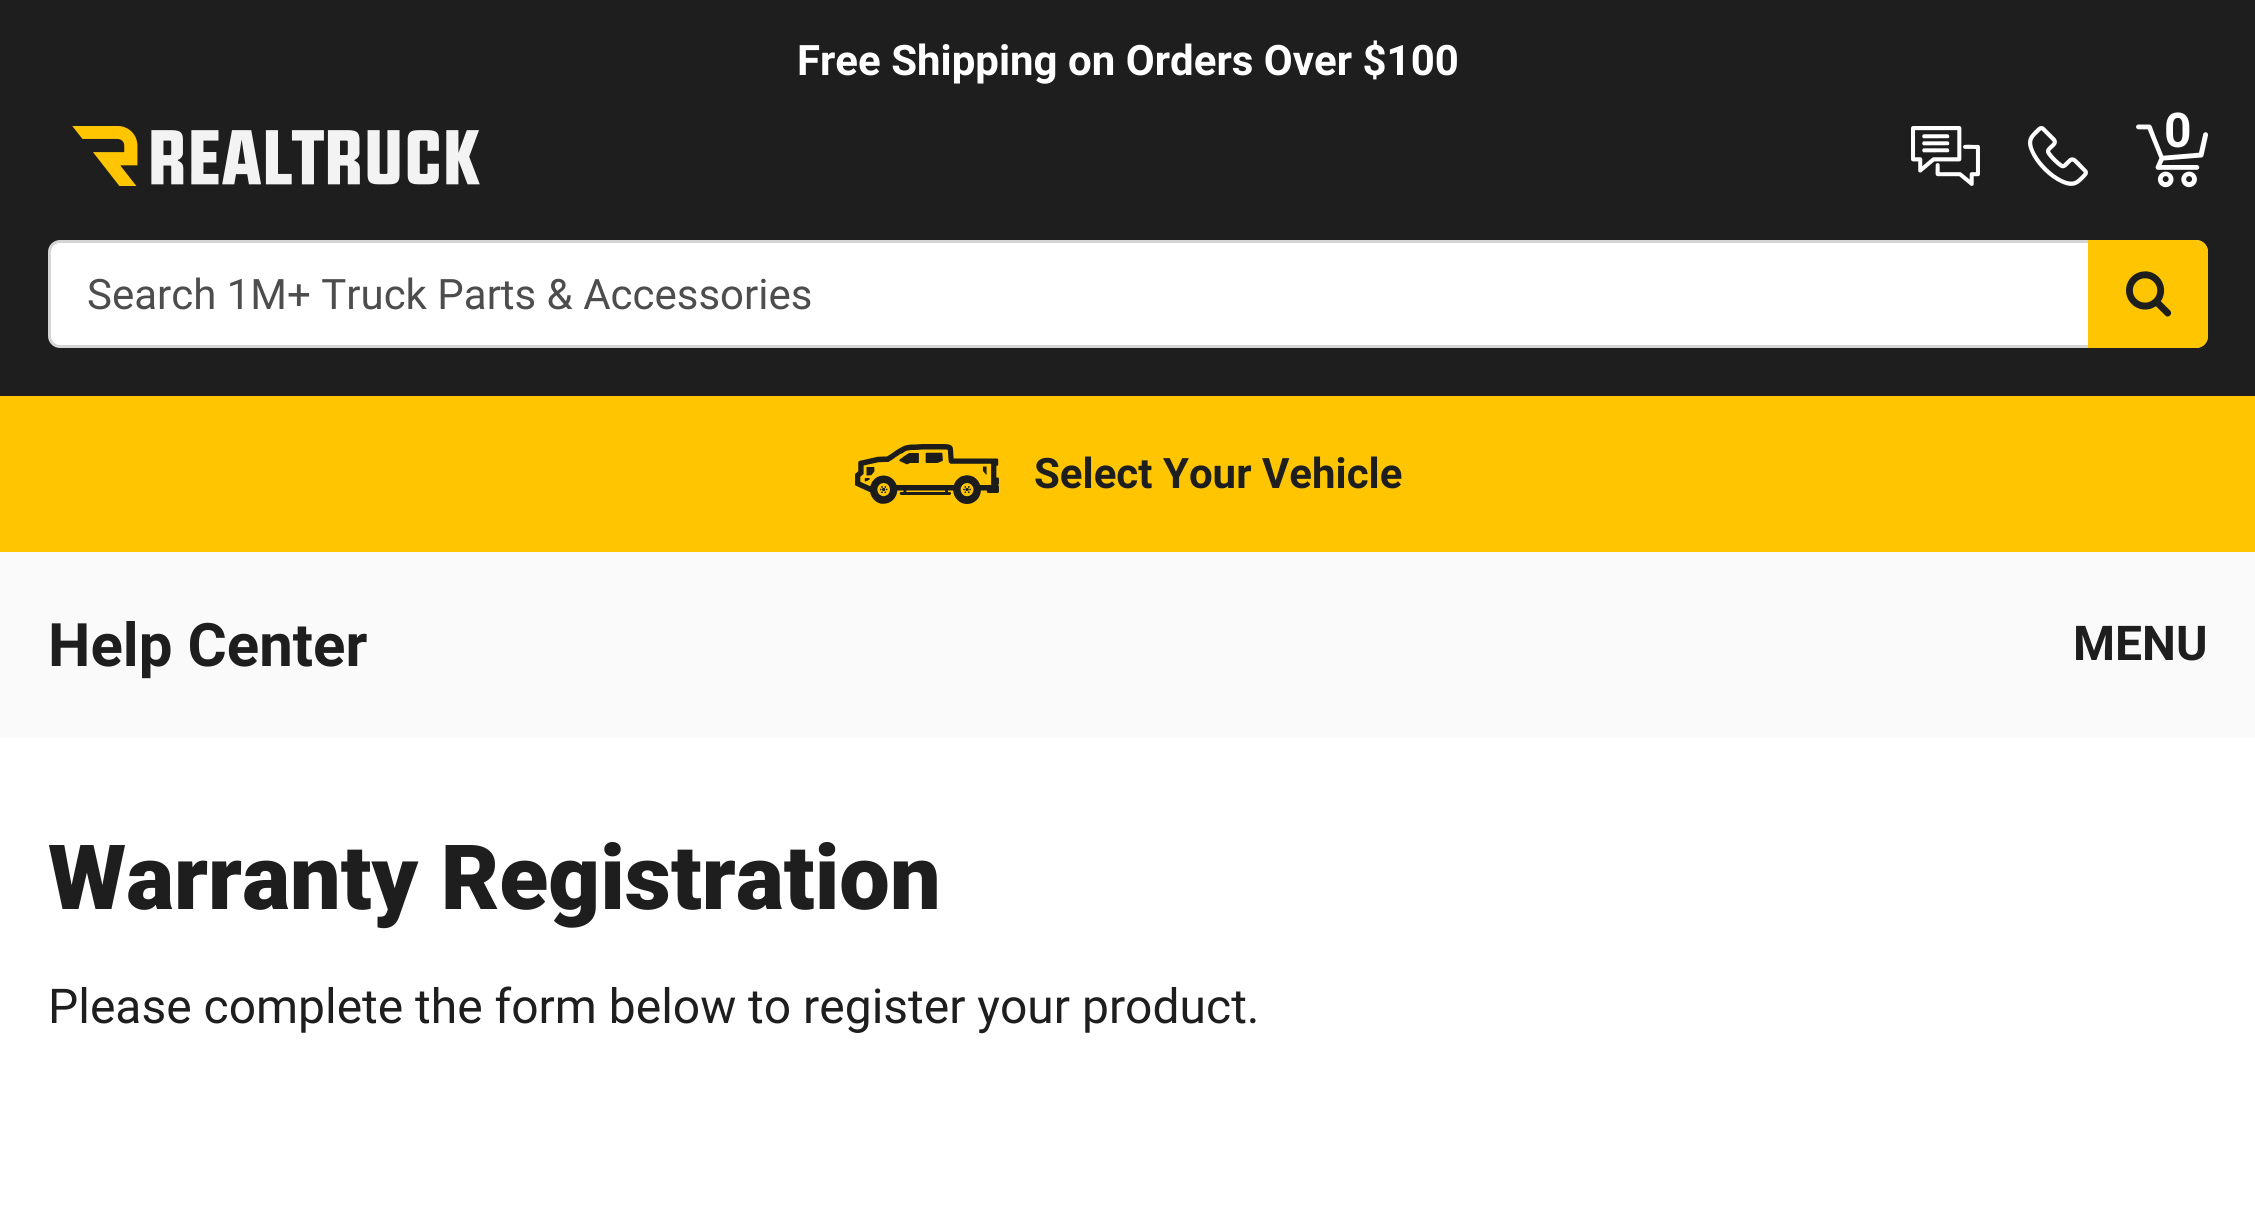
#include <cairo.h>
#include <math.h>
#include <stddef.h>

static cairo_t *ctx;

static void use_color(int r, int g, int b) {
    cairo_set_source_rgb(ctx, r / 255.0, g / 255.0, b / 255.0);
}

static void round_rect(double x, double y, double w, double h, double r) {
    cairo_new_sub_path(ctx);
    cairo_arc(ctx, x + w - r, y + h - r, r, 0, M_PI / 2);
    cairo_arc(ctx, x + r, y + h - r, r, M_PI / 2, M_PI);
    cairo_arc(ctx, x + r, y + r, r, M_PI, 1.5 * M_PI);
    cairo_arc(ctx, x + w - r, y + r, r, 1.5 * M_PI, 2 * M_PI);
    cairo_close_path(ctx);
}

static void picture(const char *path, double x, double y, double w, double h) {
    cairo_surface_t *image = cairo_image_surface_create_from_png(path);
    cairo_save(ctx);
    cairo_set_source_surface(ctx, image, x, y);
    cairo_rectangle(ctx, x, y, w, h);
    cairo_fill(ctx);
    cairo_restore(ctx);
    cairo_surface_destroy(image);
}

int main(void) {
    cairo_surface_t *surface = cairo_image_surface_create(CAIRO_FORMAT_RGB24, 2255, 1217);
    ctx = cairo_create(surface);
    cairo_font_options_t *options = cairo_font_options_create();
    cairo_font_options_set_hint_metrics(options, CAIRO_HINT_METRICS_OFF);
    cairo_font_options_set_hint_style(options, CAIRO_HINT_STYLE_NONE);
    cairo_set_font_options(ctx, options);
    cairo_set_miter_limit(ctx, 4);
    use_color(255, 255, 255);
    cairo_paint(ctx);
    use_color(30, 30, 30);
    cairo_rectangle(ctx, 0, 0, 2255, 396);
    cairo_fill(ctx);
    cairo_select_font_face(ctx, "Roboto", CAIRO_FONT_SLANT_NORMAL, CAIRO_FONT_WEIGHT_BOLD);
    cairo_set_font_size(ctx, 42);
    use_color(255, 255, 255);
    cairo_move_to(ctx, 797, 75);
    cairo_show_text(ctx, "Free Shipping on Orders Over $100");
    picture("img1.png", 72, 126, 408, 60);
    picture("img2.png", 1911, 126, 69, 60);
    picture("img3.png", 2028, 126, 60, 60);
    picture("img4.png", 2136, 124, 72, 64);
    cairo_set_font_size(ctx, 48);
    cairo_move_to(ctx, 2164, 147);
    cairo_show_text(ctx, "0");
    round_rect(49.5, 241.5, 2157, 105, 10.5);
    cairo_fill_preserve(ctx);
    use_color(213, 213, 213);
    cairo_set_line_width(ctx, 3);
    cairo_stroke(ctx);
    cairo_select_font_face(ctx, "Roboto", CAIRO_FONT_SLANT_NORMAL, CAIRO_FONT_WEIGHT_NORMAL);
    cairo_set_font_size(ctx, 42);
    use_color(77, 77, 77);
    cairo_move_to(ctx, 87, 309);
    cairo_show_text(ctx, "Search 1M+ Truck Parts & Accessories");
    use_color(255, 198, 0);
    cairo_new_path(ctx);
    cairo_move_to(ctx, 2089.5, 241.5);
    cairo_line_to(ctx, 2196, 241.5);
    cairo_curve_to(ctx, 2202, 241.5, 2206.5, 246, 2206.5, 252);
    cairo_line_to(ctx, 2206.5, 336);
    cairo_curve_to(ctx, 2206.5, 342, 2202, 346.5, 2196, 346.5);
    cairo_line_to(ctx, 2089.5, 346.5);
    cairo_close_path(ctx);
    cairo_fill_preserve(ctx);
    cairo_stroke(ctx);
    picture("img5.png", 2126, 271, 46, 46);
    cairo_rectangle(ctx, 0, 396, 2255, 156);
    cairo_fill(ctx);
    picture("img6.png", 855, 444, 144, 60);
    cairo_select_font_face(ctx, "Roboto", CAIRO_FONT_SLANT_NORMAL, CAIRO_FONT_WEIGHT_BOLD);
    use_color(30, 30, 30);
    cairo_move_to(ctx, 1034, 488);
    cairo_show_text(ctx, "Select Your Vehicle");
    use_color(250, 250, 250);
    cairo_rectangle(ctx, 0, 552, 2255, 186);
    cairo_fill(ctx);
    cairo_set_font_size(ctx, 60);
    use_color(30, 30, 30);
    cairo_move_to(ctx, 48, 666);
    cairo_show_text(ctx, "Help Center");
    cairo_set_font_size(ctx, 48);
    cairo_move_to(ctx, 2073, 660);
    cairo_show_text(ctx, "MENU");
    cairo_select_font_face(ctx, "Roboto Black", CAIRO_FONT_SLANT_NORMAL, CAIRO_FONT_WEIGHT_NORMAL);
    cairo_set_font_size(ctx, 90);
    cairo_move_to(ctx, 48, 909);
    cairo_show_text(ctx, "Warranty Registration");
    cairo_select_font_face(ctx, "Roboto", CAIRO_FONT_SLANT_NORMAL, CAIRO_FONT_WEIGHT_NORMAL);
    cairo_set_font_size(ctx, 48);
    cairo_move_to(ctx, 48, 1023);
    cairo_show_text(ctx, "Please complete the form below to register your product.");
    cairo_surface_write_to_png(surface, "result.png");
    cairo_font_options_destroy(options);
    cairo_destroy(ctx);
    cairo_surface_destroy(surface);
    return 0;
}
